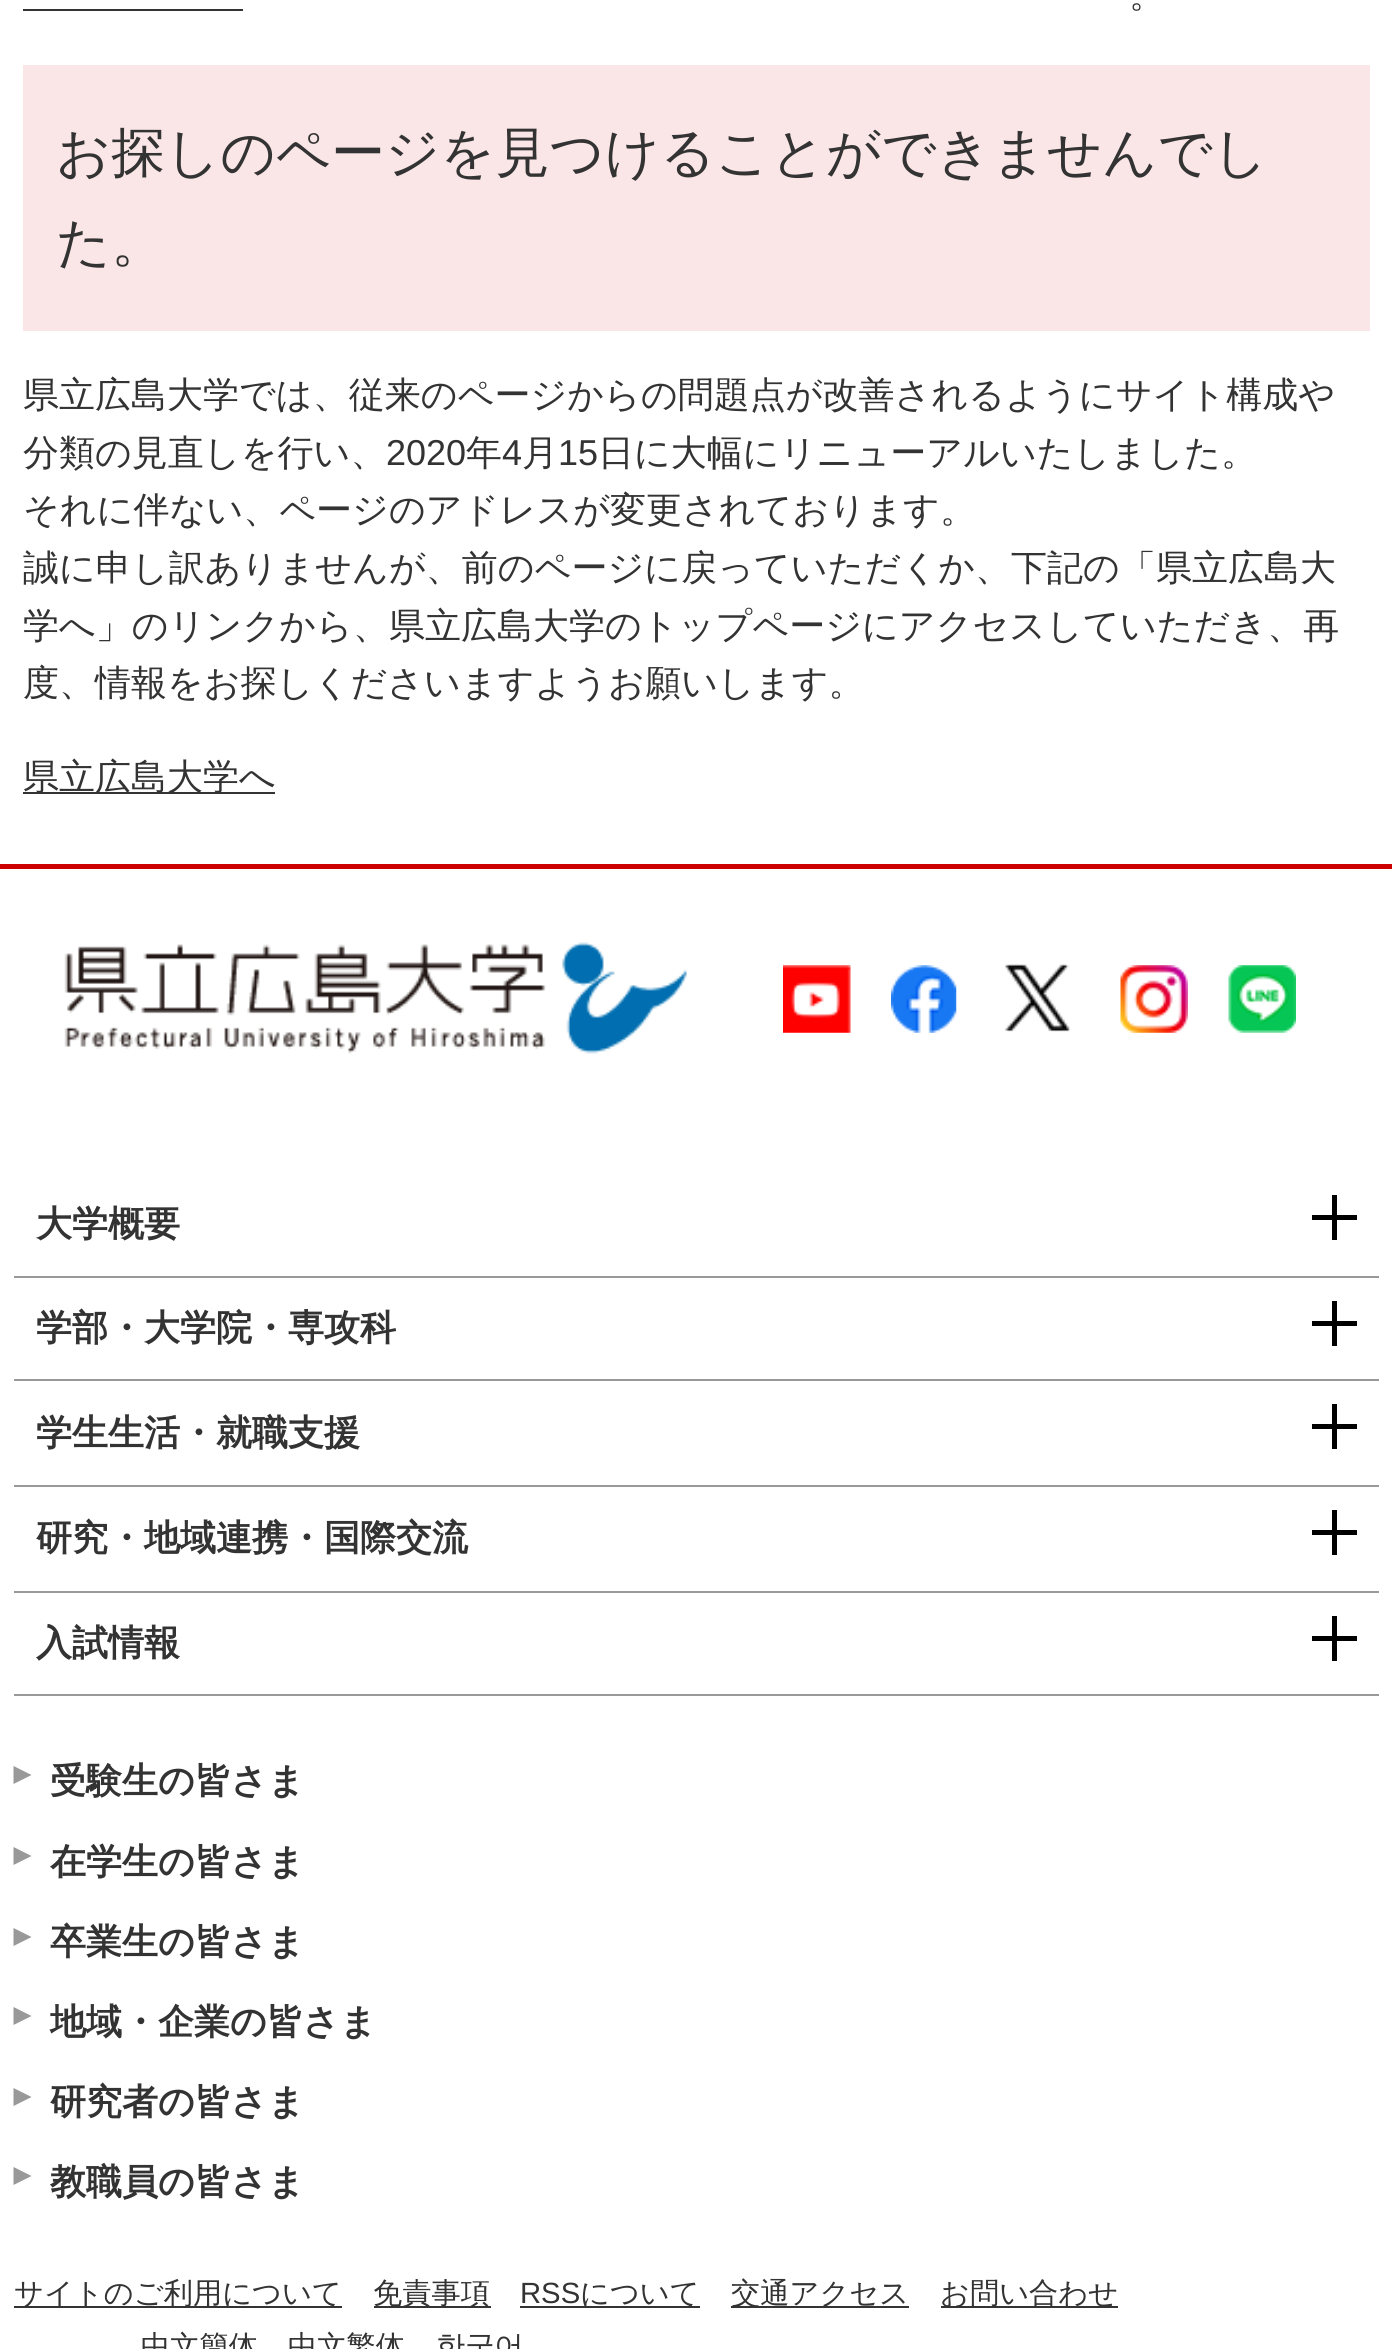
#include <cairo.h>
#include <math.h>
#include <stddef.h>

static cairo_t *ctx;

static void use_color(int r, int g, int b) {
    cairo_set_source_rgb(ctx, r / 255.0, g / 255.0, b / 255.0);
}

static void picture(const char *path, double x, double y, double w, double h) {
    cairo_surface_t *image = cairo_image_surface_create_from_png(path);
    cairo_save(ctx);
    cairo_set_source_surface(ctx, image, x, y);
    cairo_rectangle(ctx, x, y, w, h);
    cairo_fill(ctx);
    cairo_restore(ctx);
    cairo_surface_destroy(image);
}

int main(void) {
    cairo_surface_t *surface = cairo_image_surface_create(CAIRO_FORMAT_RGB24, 1392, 2349);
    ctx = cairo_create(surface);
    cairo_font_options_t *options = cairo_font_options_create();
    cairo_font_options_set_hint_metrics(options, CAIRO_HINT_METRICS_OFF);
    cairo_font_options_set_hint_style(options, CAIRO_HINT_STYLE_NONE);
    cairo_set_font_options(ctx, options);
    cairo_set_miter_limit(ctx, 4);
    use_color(255, 255, 255);
    cairo_paint(ctx);
    use_color(51, 51, 51);
    cairo_rectangle(ctx, 23, 9, 220, 2);
    cairo_fill(ctx);
    cairo_select_font_face(ctx, "WenQuanYi Zen Hei Medium", CAIRO_FONT_SLANT_NORMAL, CAIRO_FONT_WEIGHT_NORMAL);
    cairo_set_font_size(ctx, 36);
    cairo_move_to(ctx, 1129, 7);
    cairo_show_text(ctx, "。");
    use_color(250, 230, 230);
    cairo_rectangle(ctx, 23, 65, 1347, 266);
    cairo_fill(ctx);
    cairo_set_font_size(ctx, 54);
    use_color(51, 51, 51);
    cairo_move_to(ctx, 56, 171);
    cairo_show_text(ctx, "お探しのページを見つけることができませんでし");
    cairo_move_to(ctx, 56, 261);
    cairo_show_text(ctx, "た。");
    cairo_set_font_size(ctx, 36);
    cairo_move_to(ctx, 23, 407);
    cairo_show_text(ctx, "県立広島大学では、従来のページからの問題点が改善されるようにサイト構成や");
    cairo_move_to(ctx, 23, 465);
    cairo_show_text(ctx, "分類の見直しを行い、");
    cairo_select_font_face(ctx, "Liberation Sans", CAIRO_FONT_SLANT_NORMAL, CAIRO_FONT_WEIGHT_NORMAL);
    cairo_move_to(ctx, 386, 465);
    cairo_show_text(ctx, "2020");
    cairo_select_font_face(ctx, "WenQuanYi Zen Hei Medium", CAIRO_FONT_SLANT_NORMAL, CAIRO_FONT_WEIGHT_NORMAL);
    cairo_move_to(ctx, 466, 465);
    cairo_show_text(ctx, "年");
    cairo_select_font_face(ctx, "Liberation Sans", CAIRO_FONT_SLANT_NORMAL, CAIRO_FONT_WEIGHT_NORMAL);
    cairo_move_to(ctx, 502, 465);
    cairo_show_text(ctx, "4");
    cairo_select_font_face(ctx, "WenQuanYi Zen Hei Medium", CAIRO_FONT_SLANT_NORMAL, CAIRO_FONT_WEIGHT_NORMAL);
    cairo_move_to(ctx, 522, 465);
    cairo_show_text(ctx, "月");
    cairo_select_font_face(ctx, "Liberation Sans", CAIRO_FONT_SLANT_NORMAL, CAIRO_FONT_WEIGHT_NORMAL);
    cairo_move_to(ctx, 558, 465);
    cairo_show_text(ctx, "15");
    cairo_select_font_face(ctx, "WenQuanYi Zen Hei Medium", CAIRO_FONT_SLANT_NORMAL, CAIRO_FONT_WEIGHT_NORMAL);
    cairo_move_to(ctx, 598, 465);
    cairo_show_text(ctx, "日に大幅にリニューアルいたしました。");
    cairo_move_to(ctx, 23, 522);
    cairo_show_text(ctx, "それに伴ない、ページのアドレスが変更されております。");
    cairo_move_to(ctx, 23, 580);
    cairo_show_text(ctx, "誠に申し訳ありませんが、前のページに戻っていただくか、下記の「県立広島大");
    cairo_move_to(ctx, 23, 638);
    cairo_show_text(ctx, "学へ」のリンクから、県立広島大学のトップページにアクセスしていただき、再");
    cairo_move_to(ctx, 23, 695);
    cairo_show_text(ctx, "度、情報をお探しくださいますようお願いします。");
    cairo_rectangle(ctx, 23, 792, 252, 2);
    cairo_fill(ctx);
    cairo_move_to(ctx, 23, 789);
    cairo_show_text(ctx, "県立広島大学へ");
    use_color(204, 0, 0);
    cairo_rectangle(ctx, 0, 864, 1392, 5);
    cairo_fill(ctx);
    picture("img1.png", 64, 942, 623, 112);
    picture("img2.png", 783, 965, 68, 68);
    picture("img3.png", 891, 965, 66, 68);
    picture("img4.png", 1005, 964, 65, 68);
    picture("img5.png", 1120, 965, 68, 68);
    picture("img6.png", 1228, 965, 68, 68);
    use_color(153, 153, 153);
    cairo_rectangle(ctx, 14, 1276, 1365, 2);
    cairo_fill(ctx);
    cairo_select_font_face(ctx, "WenQuanYi Zen Hei", CAIRO_FONT_SLANT_NORMAL, CAIRO_FONT_WEIGHT_BOLD);
    use_color(51, 51, 51);
    cairo_move_to(ctx, 36, 1236);
    cairo_show_text(ctx, "大学概要");
    use_color(0, 0, 0);
    cairo_rectangle(ctx, 1312, 1215, 45, 5);
    cairo_fill(ctx);
    cairo_rectangle(ctx, 1332, 1195, 5, 45);
    cairo_fill(ctx);
    use_color(153, 153, 153);
    cairo_rectangle(ctx, 14, 1379, 1365, 2);
    cairo_fill(ctx);
    use_color(51, 51, 51);
    cairo_move_to(ctx, 36, 1340);
    cairo_show_text(ctx, "学部・大学院・専攻科");
    use_color(0, 0, 0);
    cairo_rectangle(ctx, 1312, 1321, 45, 5);
    cairo_fill(ctx);
    cairo_rectangle(ctx, 1332, 1301, 5, 45);
    cairo_fill(ctx);
    use_color(153, 153, 153);
    cairo_rectangle(ctx, 14, 1485, 1365, 2);
    cairo_fill(ctx);
    use_color(51, 51, 51);
    cairo_move_to(ctx, 36, 1445);
    cairo_show_text(ctx, "学生生活・就職支援");
    use_color(0, 0, 0);
    cairo_rectangle(ctx, 1312, 1424, 45, 5);
    cairo_fill(ctx);
    cairo_rectangle(ctx, 1332, 1404, 5, 45);
    cairo_fill(ctx);
    use_color(153, 153, 153);
    cairo_rectangle(ctx, 14, 1591, 1365, 2);
    cairo_fill(ctx);
    use_color(51, 51, 51);
    cairo_move_to(ctx, 36, 1550);
    cairo_show_text(ctx, "研究・地域連携・国際交流");
    use_color(0, 0, 0);
    cairo_rectangle(ctx, 1312, 1530, 45, 5);
    cairo_fill(ctx);
    cairo_rectangle(ctx, 1332, 1510, 5, 45);
    cairo_fill(ctx);
    use_color(153, 153, 153);
    cairo_rectangle(ctx, 14, 1694, 1365, 2);
    cairo_fill(ctx);
    use_color(51, 51, 51);
    cairo_move_to(ctx, 36, 1655);
    cairo_show_text(ctx, "入試情報");
    use_color(0, 0, 0);
    cairo_rectangle(ctx, 1312, 1636, 45, 5);
    cairo_fill(ctx);
    cairo_rectangle(ctx, 1332, 1616, 5, 45);
    cairo_fill(ctx);
    use_color(153, 153, 153);
    cairo_new_path(ctx);
    cairo_move_to(ctx, 13.5, 1784);
    cairo_line_to(ctx, 13.5, 1766);
    cairo_line_to(ctx, 31.5, 1775);
    cairo_close_path(ctx);
    cairo_fill(ctx);
    use_color(51, 51, 51);
    cairo_move_to(ctx, 50, 1793);
    cairo_show_text(ctx, "受験生の皆さま");
    use_color(153, 153, 153);
    cairo_new_path(ctx);
    cairo_move_to(ctx, 13.5, 1865);
    cairo_line_to(ctx, 13.5, 1847);
    cairo_line_to(ctx, 31.5, 1856);
    cairo_close_path(ctx);
    cairo_fill(ctx);
    use_color(51, 51, 51);
    cairo_move_to(ctx, 50, 1874);
    cairo_show_text(ctx, "在学生の皆さま");
    use_color(153, 153, 153);
    cairo_new_path(ctx);
    cairo_move_to(ctx, 13.5, 1946);
    cairo_line_to(ctx, 13.5, 1928);
    cairo_line_to(ctx, 31.5, 1937);
    cairo_close_path(ctx);
    cairo_fill(ctx);
    use_color(51, 51, 51);
    cairo_move_to(ctx, 50, 1954);
    cairo_show_text(ctx, "卒業生の皆さま");
    use_color(153, 153, 153);
    cairo_new_path(ctx);
    cairo_move_to(ctx, 13.5, 2025);
    cairo_line_to(ctx, 13.5, 2007);
    cairo_line_to(ctx, 31.5, 2016);
    cairo_close_path(ctx);
    cairo_fill(ctx);
    use_color(51, 51, 51);
    cairo_move_to(ctx, 50, 2034);
    cairo_show_text(ctx, "地域・企業の皆さま");
    use_color(153, 153, 153);
    cairo_new_path(ctx);
    cairo_move_to(ctx, 13.5, 2106);
    cairo_line_to(ctx, 13.5, 2088);
    cairo_line_to(ctx, 31.5, 2097);
    cairo_close_path(ctx);
    cairo_fill(ctx);
    use_color(51, 51, 51);
    cairo_move_to(ctx, 50, 2114);
    cairo_show_text(ctx, "研究者の皆さま");
    use_color(153, 153, 153);
    cairo_new_path(ctx);
    cairo_move_to(ctx, 13.5, 2185);
    cairo_line_to(ctx, 13.5, 2167);
    cairo_line_to(ctx, 31.5, 2176);
    cairo_close_path(ctx);
    cairo_fill(ctx);
    use_color(51, 51, 51);
    cairo_move_to(ctx, 50, 2194);
    cairo_show_text(ctx, "教職員の皆さま");
    cairo_rectangle(ctx, 14, 2306, 328, 2);
    cairo_fill(ctx);
    cairo_select_font_face(ctx, "WenQuanYi Zen Hei Medium", CAIRO_FONT_SLANT_NORMAL, CAIRO_FONT_WEIGHT_NORMAL);
    cairo_set_font_size(ctx, 29.25);
    cairo_move_to(ctx, 14, 2303);
    cairo_show_text(ctx, "サイトのご利用について");
    cairo_rectangle(ctx, 374, 2306, 117, 2);
    cairo_fill(ctx);
    cairo_move_to(ctx, 373, 2303);
    cairo_show_text(ctx, "免責事項");
    cairo_select_font_face(ctx, "Liberation Sans", CAIRO_FONT_SLANT_NORMAL, CAIRO_FONT_WEIGHT_NORMAL);
    cairo_move_to(ctx, 520, 2303);
    cairo_show_text(ctx, "RSS");
    cairo_rectangle(ctx, 520, 2306, 180, 2);
    cairo_fill(ctx);
    cairo_select_font_face(ctx, "WenQuanYi Zen Hei Medium", CAIRO_FONT_SLANT_NORMAL, CAIRO_FONT_WEIGHT_NORMAL);
    cairo_move_to(ctx, 580, 2303);
    cairo_show_text(ctx, "について");
    cairo_rectangle(ctx, 731, 2306, 178, 2);
    cairo_fill(ctx);
    cairo_move_to(ctx, 731, 2303);
    cairo_show_text(ctx, "交通アクセス");
    cairo_rectangle(ctx, 941, 2306, 177, 2);
    cairo_fill(ctx);
    cairo_move_to(ctx, 940, 2303);
    cairo_show_text(ctx, "お問い合わせ");
    cairo_move_to(ctx, 141, 2356);
    cairo_show_text(ctx, "中文簡体");
    cairo_move_to(ctx, 288, 2356);
    cairo_show_text(ctx, "中文繁体");
    cairo_move_to(ctx, 436, 2356);
    cairo_show_text(ctx, "한국어");
    cairo_surface_write_to_png(surface, "result.png");
    cairo_font_options_destroy(options);
    cairo_destroy(ctx);
    cairo_surface_destroy(surface);
    return 0;
}
